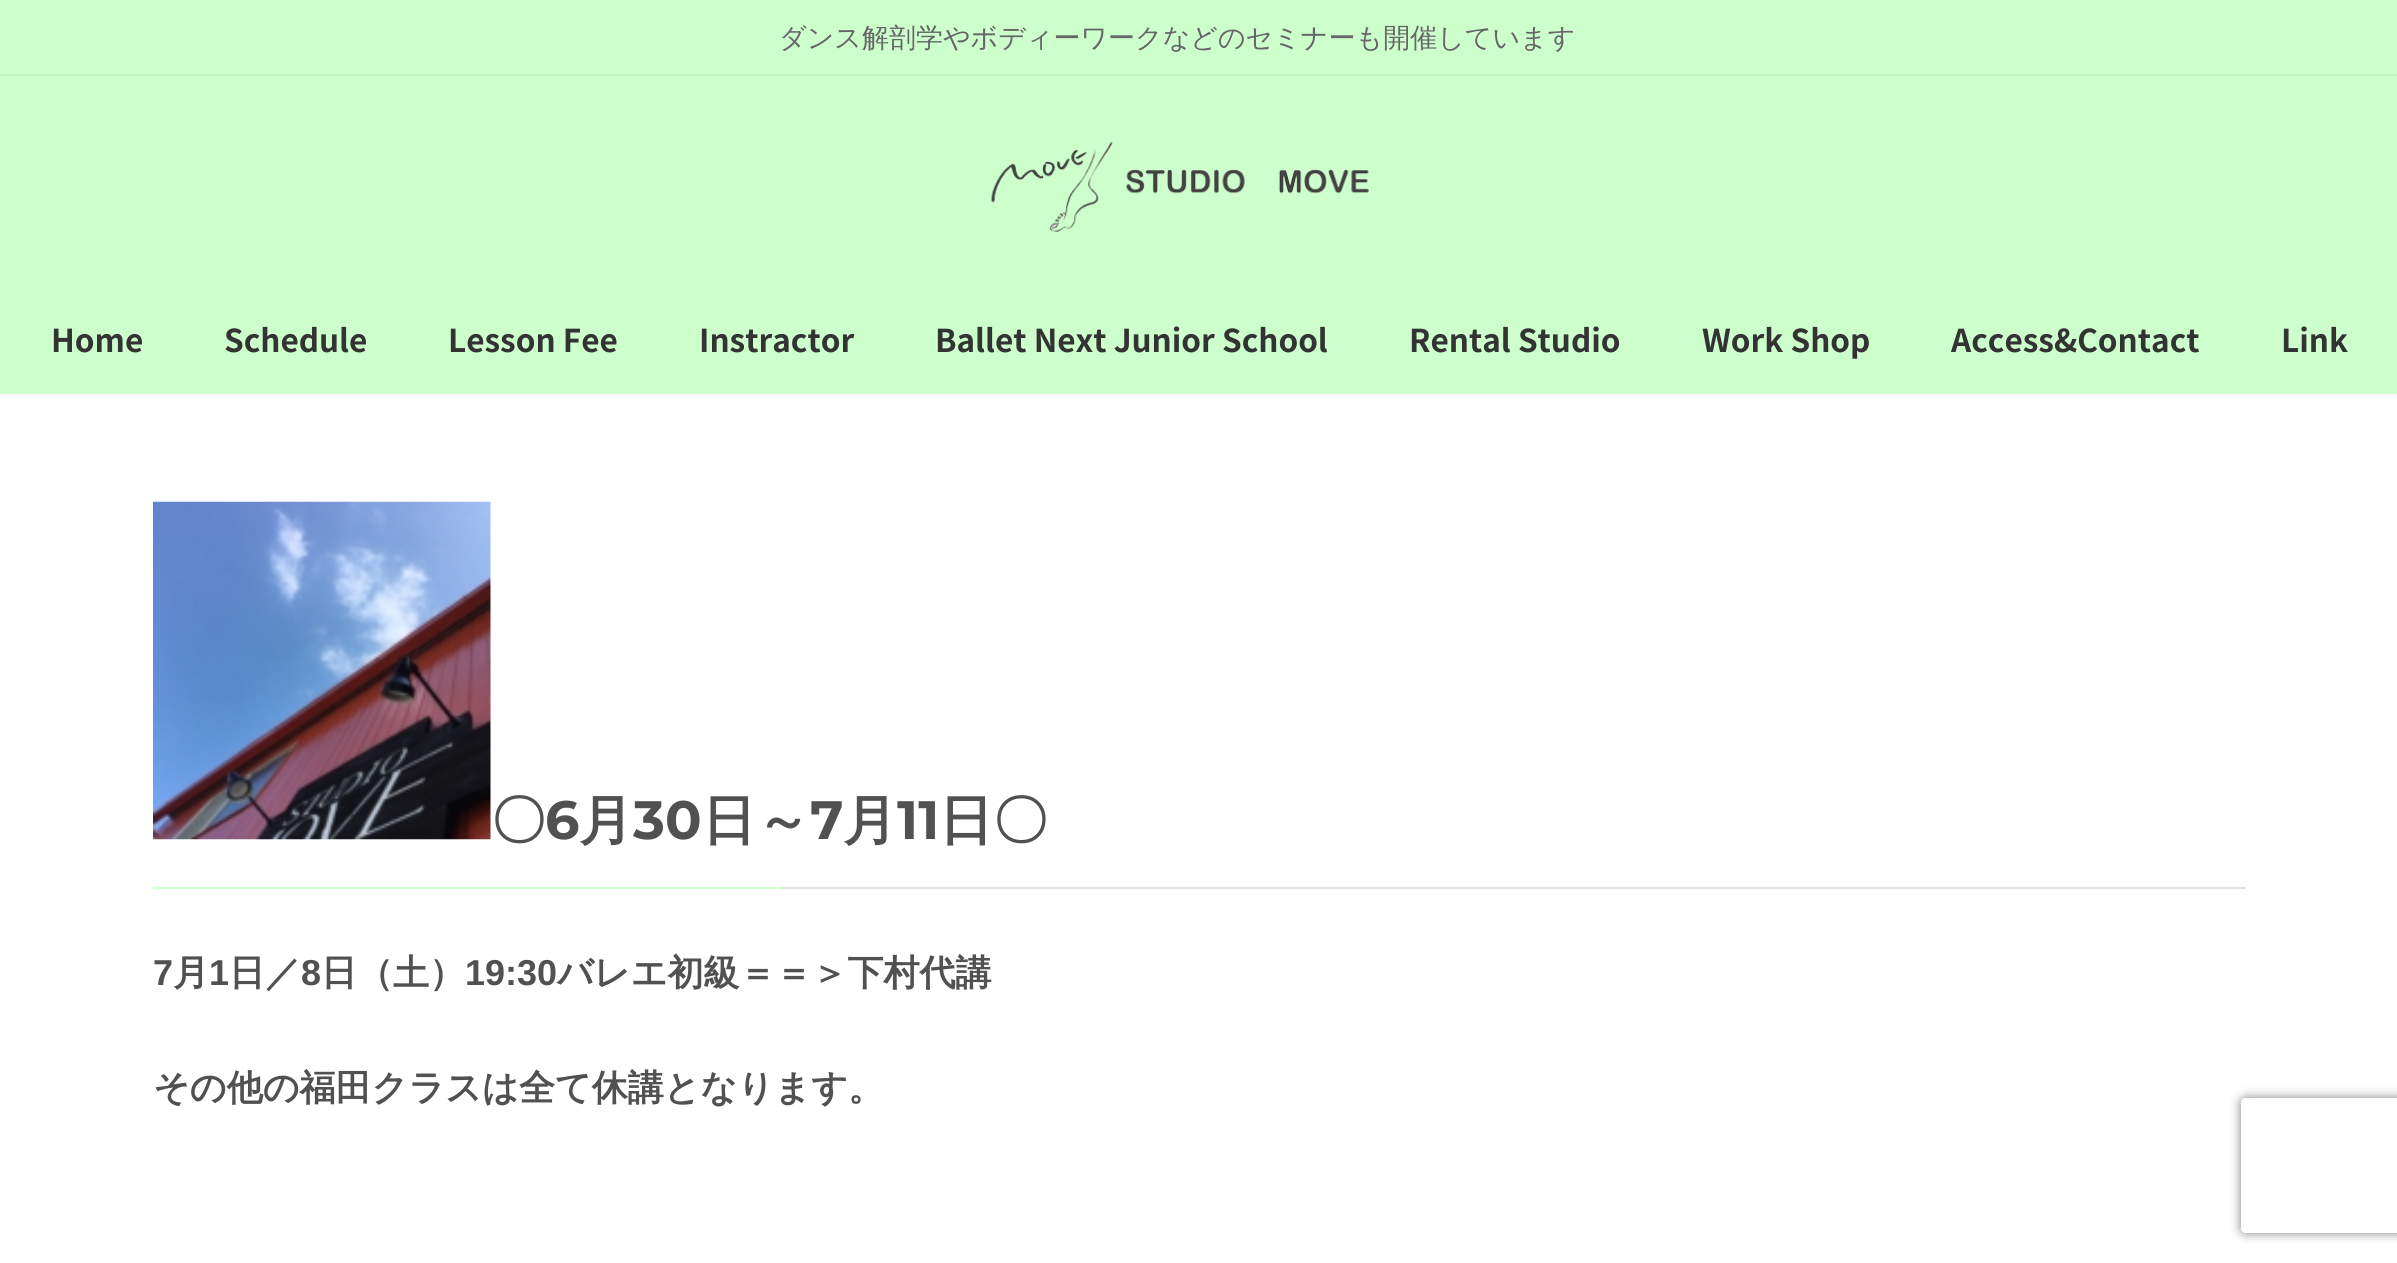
#include <cairo.h>
#include <math.h>
#include <stddef.h>

static cairo_t *ctx;

static void use_color(int r, int g, int b) {
    cairo_set_source_rgb(ctx, r / 255.0, g / 255.0, b / 255.0);
}

static void round_rect(double x, double y, double w, double h, double r) {
    cairo_new_sub_path(ctx);
    cairo_arc(ctx, x + w - r, y + h - r, r, 0, M_PI / 2);
    cairo_arc(ctx, x + r, y + h - r, r, M_PI / 2, M_PI);
    cairo_arc(ctx, x + r, y + r, r, M_PI, 1.5 * M_PI);
    cairo_arc(ctx, x + w - r, y + r, r, 1.5 * M_PI, 2 * M_PI);
    cairo_close_path(ctx);
}

static void shadow(double x, double y, double w, double h, double r, double blur, double alpha) {
    cairo_push_group_with_content(ctx, CAIRO_CONTENT_ALPHA);
    cairo_set_operator(ctx, CAIRO_OPERATOR_SOURCE);
    for (int i = 15; i >= -15 && fmin(w, h) + blur * i / 3 > 0; i -= 2) {
        double e = blur * i / 6;
        cairo_set_source_rgba(ctx, 0, 0, 0, alpha * erfc((i - 1) / 8.5) / 2);
        round_rect(x - e, y - e, w + 2 * e, h + 2 * e, fmax(0, fmin(r + e + blur * .6, fmin(w, h) / 2 + e)));
        cairo_fill(ctx);
    }
    cairo_pattern_t *soft = cairo_pop_group(ctx);
    cairo_mask(ctx, soft);
    cairo_pattern_destroy(soft);
}

static void picture(const char *path, double x, double y, double w, double h) {
    cairo_surface_t *image = cairo_image_surface_create_from_png(path);
    cairo_save(ctx);
    cairo_set_source_surface(ctx, image, x, y);
    cairo_rectangle(ctx, x, y, w, h);
    cairo_fill(ctx);
    cairo_restore(ctx);
    cairo_surface_destroy(image);
}

int main(void) {
    cairo_surface_t *surface = cairo_image_surface_create(CAIRO_FORMAT_RGB24, 2397, 1263);
    ctx = cairo_create(surface);
    cairo_font_options_t *options = cairo_font_options_create();
    cairo_font_options_set_hint_metrics(options, CAIRO_HINT_METRICS_OFF);
    cairo_font_options_set_hint_style(options, CAIRO_HINT_STYLE_NONE);
    cairo_set_font_options(ctx, options);
    cairo_set_miter_limit(ctx, 4);
    use_color(255, 255, 255);
    cairo_paint(ctx);
    use_color(0, 0, 0);
    shadow(0, -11, 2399, 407, 0, 3.5, 0.05);
    use_color(204, 255, 204);
    cairo_rectangle(ctx, 0, 0, 2397, 394);
    cairo_fill(ctx);
    use_color(196, 245, 196);
    cairo_rectangle(ctx, 0, 74, 2397, 2);
    cairo_fill(ctx);
    cairo_select_font_face(ctx, "WenQuanYi Zen Hei Medium", CAIRO_FONT_SLANT_NORMAL, CAIRO_FONT_WEIGHT_NORMAL);
    cairo_set_font_size(ctx, 27);
    use_color(102, 102, 102);
    cairo_move_to(ctx, 779, 47);
    cairo_show_text(ctx, "ダンス解剖学やボディーワークなどのセミナーも開催しています");
    picture("img1.png", 991, 142, 378, 90);
    cairo_select_font_face(ctx, "Noto Sans JP", CAIRO_FONT_SLANT_NORMAL, CAIRO_FONT_WEIGHT_BOLD);
    cairo_set_font_size(ctx, 31.5);
    use_color(51, 51, 51);
    cairo_move_to(ctx, 51, 352);
    cairo_show_text(ctx, "Home");
    cairo_move_to(ctx, 224, 352);
    cairo_show_text(ctx, "Schedule");
    cairo_move_to(ctx, 448, 352);
    cairo_show_text(ctx, "Lesson Fee");
    cairo_move_to(ctx, 699, 352);
    cairo_show_text(ctx, "Instractor");
    cairo_move_to(ctx, 935, 352);
    cairo_show_text(ctx, "Ballet Next Junior School");
    cairo_move_to(ctx, 1409, 352);
    cairo_show_text(ctx, "Rental Studio");
    cairo_move_to(ctx, 1702, 352);
    cairo_show_text(ctx, "Work Shop");
    cairo_move_to(ctx, 1951, 352);
    cairo_show_text(ctx, "Access&Contact");
    cairo_move_to(ctx, 2281, 352);
    cairo_show_text(ctx, "Link");
    use_color(224, 224, 224);
    cairo_rectangle(ctx, 781, 887, 1465, 2);
    cairo_fill(ctx);
    picture("img2.png", 153, 501, 338, 339);
    cairo_select_font_face(ctx, "WenQuanYi Zen Hei", CAIRO_FONT_SLANT_NORMAL, CAIRO_FONT_WEIGHT_BOLD);
    cairo_set_font_size(ctx, 54);
    use_color(81, 81, 81);
    cairo_move_to(ctx, 491, 839);
    cairo_show_text(ctx, "〇");
    cairo_select_font_face(ctx, "Montserrat", CAIRO_FONT_SLANT_NORMAL, CAIRO_FONT_WEIGHT_BOLD);
    cairo_move_to(ctx, 545, 839);
    cairo_show_text(ctx, "6");
    cairo_select_font_face(ctx, "WenQuanYi Zen Hei", CAIRO_FONT_SLANT_NORMAL, CAIRO_FONT_WEIGHT_BOLD);
    cairo_move_to(ctx, 579, 839);
    cairo_show_text(ctx, "月");
    cairo_select_font_face(ctx, "Montserrat", CAIRO_FONT_SLANT_NORMAL, CAIRO_FONT_WEIGHT_BOLD);
    cairo_move_to(ctx, 633, 839);
    cairo_show_text(ctx, "30");
    cairo_select_font_face(ctx, "WenQuanYi Zen Hei", CAIRO_FONT_SLANT_NORMAL, CAIRO_FONT_WEIGHT_BOLD);
    cairo_move_to(ctx, 702, 839);
    cairo_show_text(ctx, "日～");
    cairo_select_font_face(ctx, "Montserrat", CAIRO_FONT_SLANT_NORMAL, CAIRO_FONT_WEIGHT_BOLD);
    cairo_move_to(ctx, 810, 839);
    cairo_show_text(ctx, "7");
    cairo_select_font_face(ctx, "WenQuanYi Zen Hei", CAIRO_FONT_SLANT_NORMAL, CAIRO_FONT_WEIGHT_BOLD);
    cairo_move_to(ctx, 843, 839);
    cairo_show_text(ctx, "月");
    cairo_select_font_face(ctx, "Montserrat", CAIRO_FONT_SLANT_NORMAL, CAIRO_FONT_WEIGHT_BOLD);
    cairo_move_to(ctx, 897, 839);
    cairo_show_text(ctx, "11");
    cairo_select_font_face(ctx, "WenQuanYi Zen Hei", CAIRO_FONT_SLANT_NORMAL, CAIRO_FONT_WEIGHT_BOLD);
    cairo_move_to(ctx, 939, 839);
    cairo_show_text(ctx, "日〇");
    use_color(204, 255, 204);
    cairo_rectangle(ctx, 153, 887, 628, 2);
    cairo_fill(ctx);
    cairo_select_font_face(ctx, "Liberation Sans", CAIRO_FONT_SLANT_NORMAL, CAIRO_FONT_WEIGHT_BOLD);
    cairo_set_font_size(ctx, 36);
    use_color(81, 81, 81);
    cairo_move_to(ctx, 153, 985);
    cairo_show_text(ctx, "7");
    cairo_select_font_face(ctx, "WenQuanYi Zen Hei", CAIRO_FONT_SLANT_NORMAL, CAIRO_FONT_WEIGHT_BOLD);
    cairo_move_to(ctx, 173, 985);
    cairo_show_text(ctx, "月");
    cairo_select_font_face(ctx, "Liberation Sans", CAIRO_FONT_SLANT_NORMAL, CAIRO_FONT_WEIGHT_BOLD);
    cairo_move_to(ctx, 209, 985);
    cairo_show_text(ctx, "1");
    cairo_select_font_face(ctx, "WenQuanYi Zen Hei", CAIRO_FONT_SLANT_NORMAL, CAIRO_FONT_WEIGHT_BOLD);
    cairo_move_to(ctx, 229, 985);
    cairo_show_text(ctx, "日／");
    cairo_select_font_face(ctx, "Liberation Sans", CAIRO_FONT_SLANT_NORMAL, CAIRO_FONT_WEIGHT_BOLD);
    cairo_move_to(ctx, 301, 985);
    cairo_show_text(ctx, "8");
    cairo_select_font_face(ctx, "WenQuanYi Zen Hei", CAIRO_FONT_SLANT_NORMAL, CAIRO_FONT_WEIGHT_BOLD);
    cairo_move_to(ctx, 321, 985);
    cairo_show_text(ctx, "日（土）");
    cairo_select_font_face(ctx, "Liberation Sans", CAIRO_FONT_SLANT_NORMAL, CAIRO_FONT_WEIGHT_BOLD);
    cairo_move_to(ctx, 465, 985);
    cairo_show_text(ctx, "19:30");
    cairo_select_font_face(ctx, "WenQuanYi Zen Hei", CAIRO_FONT_SLANT_NORMAL, CAIRO_FONT_WEIGHT_BOLD);
    cairo_move_to(ctx, 557, 985);
    cairo_show_text(ctx, "バレエ初級＝＝＞下村代講");
    cairo_move_to(ctx, 153, 1100);
    cairo_show_text(ctx, "その他の福田クラスは全て休講となります。");
    cairo_save(ctx);
    cairo_set_fill_rule(ctx, CAIRO_FILL_RULE_EVEN_ODD);
    cairo_new_path(ctx);
    cairo_move_to(ctx, 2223, 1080);
    cairo_line_to(ctx, 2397, 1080);
    cairo_line_to(ctx, 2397, 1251);
    cairo_line_to(ctx, 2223, 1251);
    cairo_close_path(ctx);
    cairo_move_to(ctx, 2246, 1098);
    cairo_line_to(ctx, 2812, 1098);
    cairo_curve_to(ctx, 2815, 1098, 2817, 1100, 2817, 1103);
    cairo_line_to(ctx, 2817, 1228);
    cairo_curve_to(ctx, 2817, 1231, 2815, 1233, 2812, 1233);
    cairo_line_to(ctx, 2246, 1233);
    cairo_curve_to(ctx, 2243, 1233, 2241, 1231, 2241, 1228);
    cairo_line_to(ctx, 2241, 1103);
    cairo_curve_to(ctx, 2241, 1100, 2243, 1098, 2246, 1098);
    cairo_close_path(ctx);
    cairo_clip(ctx);
    use_color(128, 128, 128);
    shadow(2241, 1098, 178, 135, 5, 5.5, 1);
    cairo_restore(ctx);
    cairo_surface_write_to_png(surface, "result.png");
    cairo_font_options_destroy(options);
    cairo_destroy(ctx);
    cairo_surface_destroy(surface);
    return 0;
}
